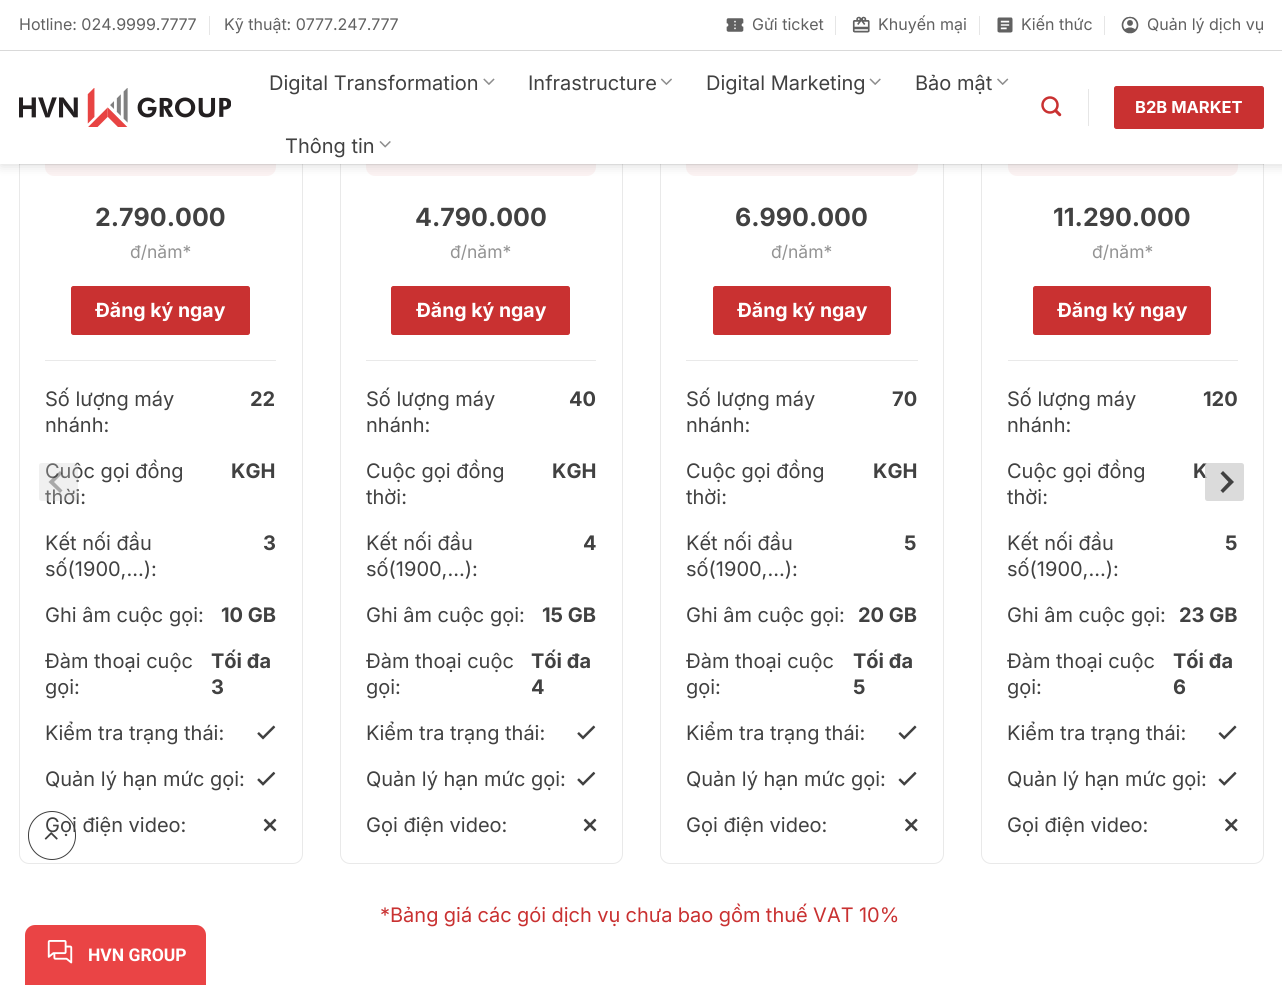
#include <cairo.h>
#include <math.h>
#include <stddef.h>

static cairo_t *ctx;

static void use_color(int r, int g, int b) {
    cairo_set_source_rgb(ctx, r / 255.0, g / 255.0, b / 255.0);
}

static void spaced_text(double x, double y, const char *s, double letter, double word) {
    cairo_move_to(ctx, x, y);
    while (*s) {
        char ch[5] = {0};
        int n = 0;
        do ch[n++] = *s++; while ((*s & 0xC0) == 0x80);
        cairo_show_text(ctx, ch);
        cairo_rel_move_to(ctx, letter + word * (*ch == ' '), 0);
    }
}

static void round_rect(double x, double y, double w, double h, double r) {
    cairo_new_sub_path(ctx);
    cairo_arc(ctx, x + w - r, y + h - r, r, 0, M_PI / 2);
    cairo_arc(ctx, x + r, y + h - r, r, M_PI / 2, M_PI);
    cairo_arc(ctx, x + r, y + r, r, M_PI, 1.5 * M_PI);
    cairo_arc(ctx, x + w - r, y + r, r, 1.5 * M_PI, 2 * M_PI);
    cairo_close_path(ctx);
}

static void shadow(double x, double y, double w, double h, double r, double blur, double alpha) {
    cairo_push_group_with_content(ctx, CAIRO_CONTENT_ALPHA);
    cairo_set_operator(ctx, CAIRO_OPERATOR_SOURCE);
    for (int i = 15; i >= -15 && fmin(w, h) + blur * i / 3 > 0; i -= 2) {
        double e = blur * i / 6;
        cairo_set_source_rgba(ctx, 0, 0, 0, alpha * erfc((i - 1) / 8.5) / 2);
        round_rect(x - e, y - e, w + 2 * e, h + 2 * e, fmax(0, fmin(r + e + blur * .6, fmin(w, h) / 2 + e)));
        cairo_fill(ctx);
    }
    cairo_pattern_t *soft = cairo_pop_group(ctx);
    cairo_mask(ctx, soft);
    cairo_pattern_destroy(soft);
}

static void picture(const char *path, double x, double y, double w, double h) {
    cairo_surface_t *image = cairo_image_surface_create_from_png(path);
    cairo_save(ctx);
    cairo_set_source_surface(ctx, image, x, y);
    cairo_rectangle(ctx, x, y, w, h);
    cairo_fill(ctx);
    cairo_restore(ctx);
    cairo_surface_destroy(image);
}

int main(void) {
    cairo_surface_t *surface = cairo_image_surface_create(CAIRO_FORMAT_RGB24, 1282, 985);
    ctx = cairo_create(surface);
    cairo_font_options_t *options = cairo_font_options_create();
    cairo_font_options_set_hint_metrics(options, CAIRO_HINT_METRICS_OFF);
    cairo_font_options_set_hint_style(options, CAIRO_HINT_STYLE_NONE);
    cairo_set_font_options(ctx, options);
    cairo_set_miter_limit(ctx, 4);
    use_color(255, 255, 255);
    cairo_paint(ctx);
    round_rect(19.5, 100.5, 283, 763, 9.5);
    use_color(233, 233, 233);
    cairo_set_line_width(ctx, 1);
    cairo_stroke(ctx);
    use_color(252, 243, 243);
    round_rect(45, 126, 231, 50, 9);
    cairo_fill(ctx);
    round_rect(340.5, 100.5, 282, 763, 9.5);
    use_color(233, 233, 233);
    cairo_stroke(ctx);
    use_color(252, 243, 243);
    round_rect(366, 126, 230, 50, 9);
    cairo_fill(ctx);
    round_rect(660.5, 100.5, 283, 763, 9.5);
    use_color(233, 233, 233);
    cairo_stroke(ctx);
    use_color(252, 243, 243);
    round_rect(686, 126, 232, 50, 9);
    cairo_fill(ctx);
    round_rect(981.5, 100.5, 282, 763, 9.5);
    use_color(233, 233, 233);
    cairo_stroke(ctx);
    use_color(252, 243, 243);
    round_rect(1008, 126, 230, 50, 9);
    cairo_fill(ctx);
    use_color(0, 0, 0);
    shadow(1, 1, 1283, 164, 0, 6, 0.15);
    use_color(255, 255, 255);
    cairo_rectangle(ctx, 0, 0, 1282, 164);
    cairo_fill(ctx);
    use_color(217, 217, 217);
    cairo_rectangle(ctx, 0, 50, 1282, 1);
    cairo_fill(ctx);
    cairo_select_font_face(ctx, "Inter", CAIRO_FONT_SLANT_NORMAL, CAIRO_FONT_WEIGHT_NORMAL);
    cairo_set_font_size(ctx, 16);
    use_color(97, 97, 97);
    cairo_move_to(ctx, 19, 30);
    cairo_show_text(ctx, "Hotline: 024.9999.7777");
    use_color(230, 230, 230);
    cairo_rectangle(ctx, 209, 16, 1, 19);
    cairo_fill(ctx);
    use_color(97, 97, 97);
    cairo_move_to(ctx, 224, 30);
    cairo_show_text(ctx, "Kỹ thuật: 0777.247.777");
    picture("img1.png", 726, 18, 18, 14);
    cairo_move_to(ctx, 752, 30);
    cairo_show_text(ctx, "Gửi ticket");
    use_color(230, 230, 230);
    cairo_rectangle(ctx, 835, 16, 1, 19);
    cairo_fill(ctx);
    picture("img2.png", 852, 16, 18, 17);
    use_color(97, 97, 97);
    cairo_move_to(ctx, 878, 30);
    cairo_show_text(ctx, "Khuyến mại");
    use_color(230, 230, 230);
    cairo_rectangle(ctx, 979, 16, 1, 19);
    cairo_fill(ctx);
    picture("img3.png", 997, 17, 16, 16);
    use_color(97, 97, 97);
    cairo_move_to(ctx, 1021, 30);
    cairo_show_text(ctx, "Kiến thức");
    use_color(230, 230, 230);
    cairo_rectangle(ctx, 1104, 16, 1, 19);
    cairo_fill(ctx);
    picture("img4.png", 1121, 16, 18, 18);
    use_color(97, 97, 97);
    cairo_move_to(ctx, 1147, 30);
    cairo_show_text(ctx, "Quản lý dịch vụ");
    picture("img5.png", 19, 88, 212, 39);
    cairo_set_font_size(ctx, 20);
    use_color(65, 65, 65);
    cairo_move_to(ctx, 269, 90);
    cairo_show_text(ctx, "Digital Transformation");
    picture("img6.png", 483, 78, 12, 7);
    cairo_move_to(ctx, 528, 90);
    cairo_show_text(ctx, "Infrastructure");
    picture("img7.png", 660, 78, 12, 7);
    cairo_move_to(ctx, 706, 90);
    cairo_show_text(ctx, "Digital Marketing");
    picture("img8.png", 869, 78, 12, 7);
    cairo_move_to(ctx, 915, 90);
    cairo_show_text(ctx, "Bảo mật");
    picture("img9.png", 997, 78, 12, 7);
    cairo_move_to(ctx, 285, 153);
    cairo_show_text(ctx, "Thông tin");
    picture("img10.png", 379, 141, 12, 7);
    picture("img11.png", 1041, 96, 21, 21);
    use_color(230, 230, 230);
    cairo_rectangle(ctx, 1088, 89, 1, 37);
    cairo_fill(ctx);
    use_color(201, 49, 49);
    round_rect(1114.5, 86.5, 149, 42, 2);
    cairo_fill_preserve(ctx);
    cairo_stroke(ctx);
    cairo_select_font_face(ctx, "Inter", CAIRO_FONT_SLANT_NORMAL, CAIRO_FONT_WEIGHT_BOLD);
    cairo_set_font_size(ctx, 16.5);
    use_color(255, 255, 255);
    cairo_move_to(ctx, 1135, 113);
    cairo_show_text(ctx, "B2B MARKET");
    cairo_set_source_rgba(ctx, 0.255, 0.255, 0.255, 0.1);
    cairo_rectangle(ctx, 19, 164, 1245, 1);
    cairo_fill(ctx);
    cairo_set_font_size(ctx, 25);
    use_color(65, 65, 65);
    cairo_move_to(ctx, 95, 226);
    cairo_show_text(ctx, "2.790.000");
    cairo_select_font_face(ctx, "Inter", CAIRO_FONT_SLANT_NORMAL, CAIRO_FONT_WEIGHT_NORMAL);
    cairo_set_font_size(ctx, 17.5);
    use_color(147, 147, 147);
    cairo_move_to(ctx, 130, 258);
    cairo_show_text(ctx, "đ/năm*");
    use_color(201, 49, 49);
    round_rect(71.5, 286.5, 178, 48, 2);
    cairo_fill_preserve(ctx);
    cairo_stroke(ctx);
    cairo_select_font_face(ctx, "Inter", CAIRO_FONT_SLANT_NORMAL, CAIRO_FONT_WEIGHT_BOLD);
    cairo_set_font_size(ctx, 19.5);
    use_color(255, 255, 255);
    cairo_move_to(ctx, 95, 317);
    cairo_show_text(ctx, "Đăng ký ngay");
    use_color(233, 233, 233);
    cairo_rectangle(ctx, 45, 360, 231, 1);
    cairo_fill(ctx);
    cairo_select_font_face(ctx, "Inter", CAIRO_FONT_SLANT_NORMAL, CAIRO_FONT_WEIGHT_NORMAL);
    cairo_set_font_size(ctx, 20);
    use_color(65, 65, 65);
    cairo_move_to(ctx, 45, 406);
    cairo_show_text(ctx, "Số lượng máy");
    cairo_move_to(ctx, 45, 432);
    cairo_show_text(ctx, "nhánh:");
    cairo_select_font_face(ctx, "Inter", CAIRO_FONT_SLANT_NORMAL, CAIRO_FONT_WEIGHT_BOLD);
    cairo_move_to(ctx, 250, 406);
    cairo_show_text(ctx, "22");
    cairo_select_font_face(ctx, "Inter", CAIRO_FONT_SLANT_NORMAL, CAIRO_FONT_WEIGHT_NORMAL);
    cairo_move_to(ctx, 45, 478);
    cairo_show_text(ctx, "Cuộc gọi đồng");
    cairo_move_to(ctx, 45, 504);
    cairo_show_text(ctx, "thời:");
    cairo_select_font_face(ctx, "Inter", CAIRO_FONT_SLANT_NORMAL, CAIRO_FONT_WEIGHT_BOLD);
    cairo_move_to(ctx, 231, 478);
    cairo_show_text(ctx, "KGH");
    cairo_select_font_face(ctx, "Inter", CAIRO_FONT_SLANT_NORMAL, CAIRO_FONT_WEIGHT_NORMAL);
    cairo_move_to(ctx, 45, 550);
    cairo_show_text(ctx, "Kết nối đầu");
    cairo_move_to(ctx, 45, 576);
    cairo_show_text(ctx, "số(1900,…):");
    cairo_select_font_face(ctx, "Inter", CAIRO_FONT_SLANT_NORMAL, CAIRO_FONT_WEIGHT_BOLD);
    cairo_move_to(ctx, 263, 550);
    cairo_show_text(ctx, "3");
    cairo_select_font_face(ctx, "Inter", CAIRO_FONT_SLANT_NORMAL, CAIRO_FONT_WEIGHT_NORMAL);
    cairo_move_to(ctx, 45, 622);
    cairo_show_text(ctx, "Ghi âm cuộc gọi:");
    cairo_select_font_face(ctx, "Inter", CAIRO_FONT_SLANT_NORMAL, CAIRO_FONT_WEIGHT_BOLD);
    cairo_move_to(ctx, 221, 622);
    cairo_show_text(ctx, "10 GB");
    cairo_select_font_face(ctx, "Inter", CAIRO_FONT_SLANT_NORMAL, CAIRO_FONT_WEIGHT_NORMAL);
    cairo_move_to(ctx, 45, 668);
    cairo_show_text(ctx, "Đàm thoại cuộc");
    cairo_move_to(ctx, 45, 694);
    cairo_show_text(ctx, "gọi:");
    cairo_select_font_face(ctx, "Inter", CAIRO_FONT_SLANT_NORMAL, CAIRO_FONT_WEIGHT_BOLD);
    cairo_move_to(ctx, 211, 668);
    cairo_show_text(ctx, "Tối đa");
    cairo_move_to(ctx, 211, 694);
    cairo_show_text(ctx, "3");
    cairo_select_font_face(ctx, "Inter", CAIRO_FONT_SLANT_NORMAL, CAIRO_FONT_WEIGHT_NORMAL);
    cairo_move_to(ctx, 45, 740);
    cairo_show_text(ctx, "Kiểm tra trạng thái:");
    picture("img12.png", 257, 725, 19, 15);
    cairo_move_to(ctx, 45, 786);
    cairo_show_text(ctx, "Quản lý hạn mức gọi:");
    picture("img13.png", 257, 771, 19, 15);
    cairo_move_to(ctx, 45, 832);
    cairo_show_text(ctx, "Gọi điện video:");
    picture("img14.png", 263, 818, 14, 14);
    cairo_select_font_face(ctx, "Inter", CAIRO_FONT_SLANT_NORMAL, CAIRO_FONT_WEIGHT_BOLD);
    cairo_set_font_size(ctx, 25);
    cairo_move_to(ctx, 415, 226);
    cairo_show_text(ctx, "4.790.000");
    cairo_select_font_face(ctx, "Inter", CAIRO_FONT_SLANT_NORMAL, CAIRO_FONT_WEIGHT_NORMAL);
    cairo_set_font_size(ctx, 17.5);
    use_color(147, 147, 147);
    cairo_move_to(ctx, 450, 258);
    cairo_show_text(ctx, "đ/năm*");
    use_color(201, 49, 49);
    round_rect(391.5, 286.5, 178, 48, 2);
    cairo_fill_preserve(ctx);
    cairo_stroke(ctx);
    cairo_select_font_face(ctx, "Inter", CAIRO_FONT_SLANT_NORMAL, CAIRO_FONT_WEIGHT_BOLD);
    cairo_set_font_size(ctx, 19.5);
    use_color(255, 255, 255);
    cairo_move_to(ctx, 416, 317);
    cairo_show_text(ctx, "Đăng ký ngay");
    use_color(233, 233, 233);
    cairo_rectangle(ctx, 366, 360, 230, 1);
    cairo_fill(ctx);
    cairo_select_font_face(ctx, "Inter", CAIRO_FONT_SLANT_NORMAL, CAIRO_FONT_WEIGHT_NORMAL);
    cairo_set_font_size(ctx, 20);
    use_color(65, 65, 65);
    cairo_move_to(ctx, 366, 406);
    cairo_show_text(ctx, "Số lượng máy");
    cairo_move_to(ctx, 366, 432);
    cairo_show_text(ctx, "nhánh:");
    cairo_select_font_face(ctx, "Inter", CAIRO_FONT_SLANT_NORMAL, CAIRO_FONT_WEIGHT_BOLD);
    cairo_move_to(ctx, 569, 406);
    cairo_show_text(ctx, "40");
    cairo_select_font_face(ctx, "Inter", CAIRO_FONT_SLANT_NORMAL, CAIRO_FONT_WEIGHT_NORMAL);
    cairo_move_to(ctx, 366, 478);
    cairo_show_text(ctx, "Cuộc gọi đồng");
    cairo_move_to(ctx, 366, 504);
    cairo_show_text(ctx, "thời:");
    cairo_select_font_face(ctx, "Inter", CAIRO_FONT_SLANT_NORMAL, CAIRO_FONT_WEIGHT_BOLD);
    cairo_move_to(ctx, 552, 478);
    cairo_show_text(ctx, "KGH");
    cairo_select_font_face(ctx, "Inter", CAIRO_FONT_SLANT_NORMAL, CAIRO_FONT_WEIGHT_NORMAL);
    cairo_move_to(ctx, 366, 550);
    cairo_show_text(ctx, "Kết nối đầu");
    cairo_move_to(ctx, 366, 576);
    cairo_show_text(ctx, "số(1900,…):");
    cairo_select_font_face(ctx, "Inter", CAIRO_FONT_SLANT_NORMAL, CAIRO_FONT_WEIGHT_BOLD);
    cairo_move_to(ctx, 583, 550);
    cairo_show_text(ctx, "4");
    cairo_select_font_face(ctx, "Inter", CAIRO_FONT_SLANT_NORMAL, CAIRO_FONT_WEIGHT_NORMAL);
    cairo_move_to(ctx, 366, 622);
    cairo_show_text(ctx, "Ghi âm cuộc gọi:");
    cairo_select_font_face(ctx, "Inter", CAIRO_FONT_SLANT_NORMAL, CAIRO_FONT_WEIGHT_BOLD);
    cairo_move_to(ctx, 542, 622);
    cairo_show_text(ctx, "15 GB");
    cairo_select_font_face(ctx, "Inter", CAIRO_FONT_SLANT_NORMAL, CAIRO_FONT_WEIGHT_NORMAL);
    cairo_move_to(ctx, 366, 668);
    cairo_show_text(ctx, "Đàm thoại cuộc");
    cairo_move_to(ctx, 366, 694);
    cairo_show_text(ctx, "gọi:");
    cairo_select_font_face(ctx, "Inter", CAIRO_FONT_SLANT_NORMAL, CAIRO_FONT_WEIGHT_BOLD);
    cairo_move_to(ctx, 531, 668);
    cairo_show_text(ctx, "Tối đa");
    cairo_move_to(ctx, 531, 694);
    cairo_show_text(ctx, "4");
    cairo_select_font_face(ctx, "Inter", CAIRO_FONT_SLANT_NORMAL, CAIRO_FONT_WEIGHT_NORMAL);
    cairo_move_to(ctx, 366, 740);
    cairo_show_text(ctx, "Kiểm tra trạng thái:");
    picture("img12.png", 577, 725, 19, 15);
    cairo_move_to(ctx, 366, 786);
    cairo_show_text(ctx, "Quản lý hạn mức gọi:");
    picture("img13.png", 577, 771, 19, 15);
    cairo_move_to(ctx, 366, 832);
    cairo_show_text(ctx, "Gọi điện video:");
    picture("img14.png", 583, 818, 14, 14);
    cairo_select_font_face(ctx, "Inter", CAIRO_FONT_SLANT_NORMAL, CAIRO_FONT_WEIGHT_BOLD);
    cairo_set_font_size(ctx, 25);
    cairo_move_to(ctx, 735, 226);
    cairo_show_text(ctx, "6.990.000");
    cairo_select_font_face(ctx, "Inter", CAIRO_FONT_SLANT_NORMAL, CAIRO_FONT_WEIGHT_NORMAL);
    cairo_set_font_size(ctx, 17.5);
    use_color(147, 147, 147);
    cairo_move_to(ctx, 771, 258);
    cairo_show_text(ctx, "đ/năm*");
    use_color(201, 49, 49);
    round_rect(713.5, 286.5, 177, 48, 2);
    cairo_fill_preserve(ctx);
    cairo_stroke(ctx);
    cairo_select_font_face(ctx, "Inter", CAIRO_FONT_SLANT_NORMAL, CAIRO_FONT_WEIGHT_BOLD);
    cairo_set_font_size(ctx, 19.5);
    use_color(255, 255, 255);
    cairo_move_to(ctx, 737, 317);
    cairo_show_text(ctx, "Đăng ký ngay");
    use_color(233, 233, 233);
    cairo_rectangle(ctx, 686, 360, 232, 1);
    cairo_fill(ctx);
    cairo_select_font_face(ctx, "Inter", CAIRO_FONT_SLANT_NORMAL, CAIRO_FONT_WEIGHT_NORMAL);
    cairo_set_font_size(ctx, 20);
    use_color(65, 65, 65);
    cairo_move_to(ctx, 686, 406);
    cairo_show_text(ctx, "Số lượng máy");
    cairo_move_to(ctx, 686, 432);
    cairo_show_text(ctx, "nhánh:");
    cairo_select_font_face(ctx, "Inter", CAIRO_FONT_SLANT_NORMAL, CAIRO_FONT_WEIGHT_BOLD);
    cairo_move_to(ctx, 892, 406);
    cairo_show_text(ctx, "70");
    cairo_select_font_face(ctx, "Inter", CAIRO_FONT_SLANT_NORMAL, CAIRO_FONT_WEIGHT_NORMAL);
    cairo_move_to(ctx, 686, 478);
    cairo_show_text(ctx, "Cuộc gọi đồng");
    cairo_move_to(ctx, 686, 504);
    cairo_show_text(ctx, "thời:");
    cairo_select_font_face(ctx, "Inter", CAIRO_FONT_SLANT_NORMAL, CAIRO_FONT_WEIGHT_BOLD);
    cairo_move_to(ctx, 873, 478);
    cairo_show_text(ctx, "KGH");
    cairo_select_font_face(ctx, "Inter", CAIRO_FONT_SLANT_NORMAL, CAIRO_FONT_WEIGHT_NORMAL);
    cairo_move_to(ctx, 686, 550);
    cairo_show_text(ctx, "Kết nối đầu");
    cairo_move_to(ctx, 686, 576);
    cairo_show_text(ctx, "số(1900,…):");
    cairo_select_font_face(ctx, "Inter", CAIRO_FONT_SLANT_NORMAL, CAIRO_FONT_WEIGHT_BOLD);
    cairo_move_to(ctx, 904, 550);
    cairo_show_text(ctx, "5");
    cairo_select_font_face(ctx, "Inter", CAIRO_FONT_SLANT_NORMAL, CAIRO_FONT_WEIGHT_NORMAL);
    cairo_move_to(ctx, 686, 622);
    cairo_show_text(ctx, "Ghi âm cuộc gọi:");
    cairo_select_font_face(ctx, "Inter", CAIRO_FONT_SLANT_NORMAL, CAIRO_FONT_WEIGHT_BOLD);
    cairo_move_to(ctx, 858, 622);
    cairo_show_text(ctx, "20 GB");
    cairo_select_font_face(ctx, "Inter", CAIRO_FONT_SLANT_NORMAL, CAIRO_FONT_WEIGHT_NORMAL);
    cairo_move_to(ctx, 686, 668);
    cairo_show_text(ctx, "Đàm thoại cuộc");
    cairo_move_to(ctx, 686, 694);
    cairo_show_text(ctx, "gọi:");
    cairo_select_font_face(ctx, "Inter", CAIRO_FONT_SLANT_NORMAL, CAIRO_FONT_WEIGHT_BOLD);
    cairo_move_to(ctx, 853, 668);
    cairo_show_text(ctx, "Tối đa");
    cairo_move_to(ctx, 853, 694);
    cairo_show_text(ctx, "5");
    cairo_select_font_face(ctx, "Inter", CAIRO_FONT_SLANT_NORMAL, CAIRO_FONT_WEIGHT_NORMAL);
    cairo_move_to(ctx, 686, 740);
    cairo_show_text(ctx, "Kiểm tra trạng thái:");
    picture("img15.png", 898, 725, 19, 15);
    cairo_move_to(ctx, 686, 786);
    cairo_show_text(ctx, "Quản lý hạn mức gọi:");
    picture("img16.png", 898, 771, 19, 15);
    cairo_move_to(ctx, 686, 832);
    cairo_show_text(ctx, "Gọi điện video:");
    picture("img17.png", 905, 818, 13, 14);
    cairo_select_font_face(ctx, "Inter", CAIRO_FONT_SLANT_NORMAL, CAIRO_FONT_WEIGHT_BOLD);
    cairo_set_font_size(ctx, 25);
    cairo_move_to(ctx, 1053, 226);
    cairo_show_text(ctx, "11.290.000");
    cairo_select_font_face(ctx, "Inter", CAIRO_FONT_SLANT_NORMAL, CAIRO_FONT_WEIGHT_NORMAL);
    cairo_set_font_size(ctx, 17.5);
    use_color(147, 147, 147);
    cairo_move_to(ctx, 1092, 258);
    cairo_show_text(ctx, "đ/năm*");
    use_color(201, 49, 49);
    round_rect(1033.5, 286.5, 177, 48, 2);
    cairo_fill_preserve(ctx);
    cairo_stroke(ctx);
    cairo_select_font_face(ctx, "Inter", CAIRO_FONT_SLANT_NORMAL, CAIRO_FONT_WEIGHT_BOLD);
    cairo_set_font_size(ctx, 19.5);
    use_color(255, 255, 255);
    cairo_move_to(ctx, 1057, 317);
    cairo_show_text(ctx, "Đăng ký ngay");
    use_color(233, 233, 233);
    cairo_rectangle(ctx, 1008, 360, 230, 1);
    cairo_fill(ctx);
    cairo_select_font_face(ctx, "Inter", CAIRO_FONT_SLANT_NORMAL, CAIRO_FONT_WEIGHT_NORMAL);
    cairo_set_font_size(ctx, 20);
    use_color(65, 65, 65);
    cairo_move_to(ctx, 1007, 406);
    cairo_show_text(ctx, "Số lượng máy");
    cairo_move_to(ctx, 1007, 432);
    cairo_show_text(ctx, "nhánh:");
    cairo_select_font_face(ctx, "Inter", CAIRO_FONT_SLANT_NORMAL, CAIRO_FONT_WEIGHT_BOLD);
    cairo_move_to(ctx, 1203, 406);
    cairo_show_text(ctx, "120");
    cairo_select_font_face(ctx, "Inter", CAIRO_FONT_SLANT_NORMAL, CAIRO_FONT_WEIGHT_NORMAL);
    cairo_move_to(ctx, 1007, 478);
    cairo_show_text(ctx, "Cuộc gọi đồng");
    cairo_move_to(ctx, 1007, 504);
    cairo_show_text(ctx, "thời:");
    cairo_select_font_face(ctx, "Inter", CAIRO_FONT_SLANT_NORMAL, CAIRO_FONT_WEIGHT_BOLD);
    cairo_move_to(ctx, 1193, 478);
    cairo_show_text(ctx, "K");
    cairo_select_font_face(ctx, "Inter", CAIRO_FONT_SLANT_NORMAL, CAIRO_FONT_WEIGHT_NORMAL);
    cairo_move_to(ctx, 1007, 550);
    cairo_show_text(ctx, "Kết nối đầu");
    cairo_move_to(ctx, 1007, 576);
    cairo_show_text(ctx, "số(1900,…):");
    cairo_select_font_face(ctx, "Inter", CAIRO_FONT_SLANT_NORMAL, CAIRO_FONT_WEIGHT_BOLD);
    cairo_move_to(ctx, 1225, 550);
    cairo_show_text(ctx, "5");
    cairo_select_font_face(ctx, "Inter", CAIRO_FONT_SLANT_NORMAL, CAIRO_FONT_WEIGHT_NORMAL);
    cairo_move_to(ctx, 1007, 622);
    cairo_show_text(ctx, "Ghi âm cuộc gọi:");
    cairo_select_font_face(ctx, "Inter", CAIRO_FONT_SLANT_NORMAL, CAIRO_FONT_WEIGHT_BOLD);
    cairo_move_to(ctx, 1179, 622);
    cairo_show_text(ctx, "23 GB");
    cairo_select_font_face(ctx, "Inter", CAIRO_FONT_SLANT_NORMAL, CAIRO_FONT_WEIGHT_NORMAL);
    cairo_move_to(ctx, 1007, 668);
    cairo_show_text(ctx, "Đàm thoại cuộc");
    cairo_move_to(ctx, 1007, 694);
    cairo_show_text(ctx, "gọi:");
    cairo_select_font_face(ctx, "Inter", CAIRO_FONT_SLANT_NORMAL, CAIRO_FONT_WEIGHT_BOLD);
    cairo_move_to(ctx, 1173, 668);
    cairo_show_text(ctx, "Tối đa");
    cairo_move_to(ctx, 1173, 694);
    cairo_show_text(ctx, "6");
    cairo_select_font_face(ctx, "Inter", CAIRO_FONT_SLANT_NORMAL, CAIRO_FONT_WEIGHT_NORMAL);
    cairo_move_to(ctx, 1007, 740);
    cairo_show_text(ctx, "Kiểm tra trạng thái:");
    picture("img15.png", 1218, 725, 19, 15);
    cairo_move_to(ctx, 1007, 786);
    cairo_show_text(ctx, "Quản lý hạn mức gọi:");
    picture("img16.png", 1218, 771, 19, 15);
    cairo_move_to(ctx, 1007, 832);
    cairo_show_text(ctx, "Gọi điện video:");
    picture("img17.png", 1225, 818, 13, 14);
    cairo_set_source_rgba(ctx, 0.8, 0.8, 0.8, 0.3);
    round_rect(39, 463, 39, 38, 2.5);
    cairo_fill(ctx);
    cairo_set_source_rgba(ctx, 0, 0, 0, 0.3);
    cairo_new_path(ctx);
    cairo_move_to(ctx, 60, 471);
    cairo_line_to(ctx, 62.5, 473.5);
    cairo_line_to(ctx, 54, 482);
    cairo_line_to(ctx, 62.5, 490.5);
    cairo_line_to(ctx, 60, 493);
    cairo_line_to(ctx, 48.5, 482);
    cairo_close_path(ctx);
    cairo_fill(ctx);
    cairo_set_source_rgba(ctx, 0.8, 0.8, 0.8, 0.7);
    round_rect(1205, 463, 39, 38, 2.5);
    cairo_fill(ctx);
    cairo_set_source_rgba(ctx, 0, 0, 0, 0.7);
    cairo_new_path(ctx);
    cairo_move_to(ctx, 1223, 471);
    cairo_line_to(ctx, 1220.5, 473.5);
    cairo_line_to(ctx, 1228.5, 482);
    cairo_line_to(ctx, 1220.5, 490.5);
    cairo_line_to(ctx, 1223, 493);
    cairo_line_to(ctx, 1234, 482);
    cairo_close_path(ctx);
    cairo_fill(ctx);
    use_color(201, 49, 49);
    spaced_text(380, 922, "*Bảng giá các gói dịch vụ chưa bao gồm thuế VAT 10%", 0, -0.25);
    round_rect(28.5, 811.5, 47, 48, 23.5);
    use_color(63, 63, 63);
    cairo_stroke(ctx);
    picture("img18.png", 44, 832, 14, 8);
    use_color(234, 68, 69);
    cairo_new_path(ctx);
    cairo_move_to(ctx, 35, 925);
    cairo_line_to(ctx, 196, 925);
    cairo_curve_to(ctx, 201.5, 925, 206, 929.5, 206, 935);
    cairo_line_to(ctx, 206, 985);
    cairo_line_to(ctx, 25, 985);
    cairo_line_to(ctx, 25, 935);
    cairo_curve_to(ctx, 25, 929.5, 29.5, 925, 35, 925);
    cairo_close_path(ctx);
    cairo_fill(ctx);
    picture("img19.png", 47, 940, 26, 24);
    cairo_select_font_face(ctx, "Roboto", CAIRO_FONT_SLANT_NORMAL, CAIRO_FONT_WEIGHT_BOLD);
    cairo_set_font_size(ctx, 17.5);
    use_color(255, 255, 255);
    cairo_move_to(ctx, 88, 961);
    cairo_show_text(ctx, "HVN GROUP");
    cairo_surface_write_to_png(surface, "result.png");
    cairo_font_options_destroy(options);
    cairo_destroy(ctx);
    cairo_surface_destroy(surface);
    return 0;
}
